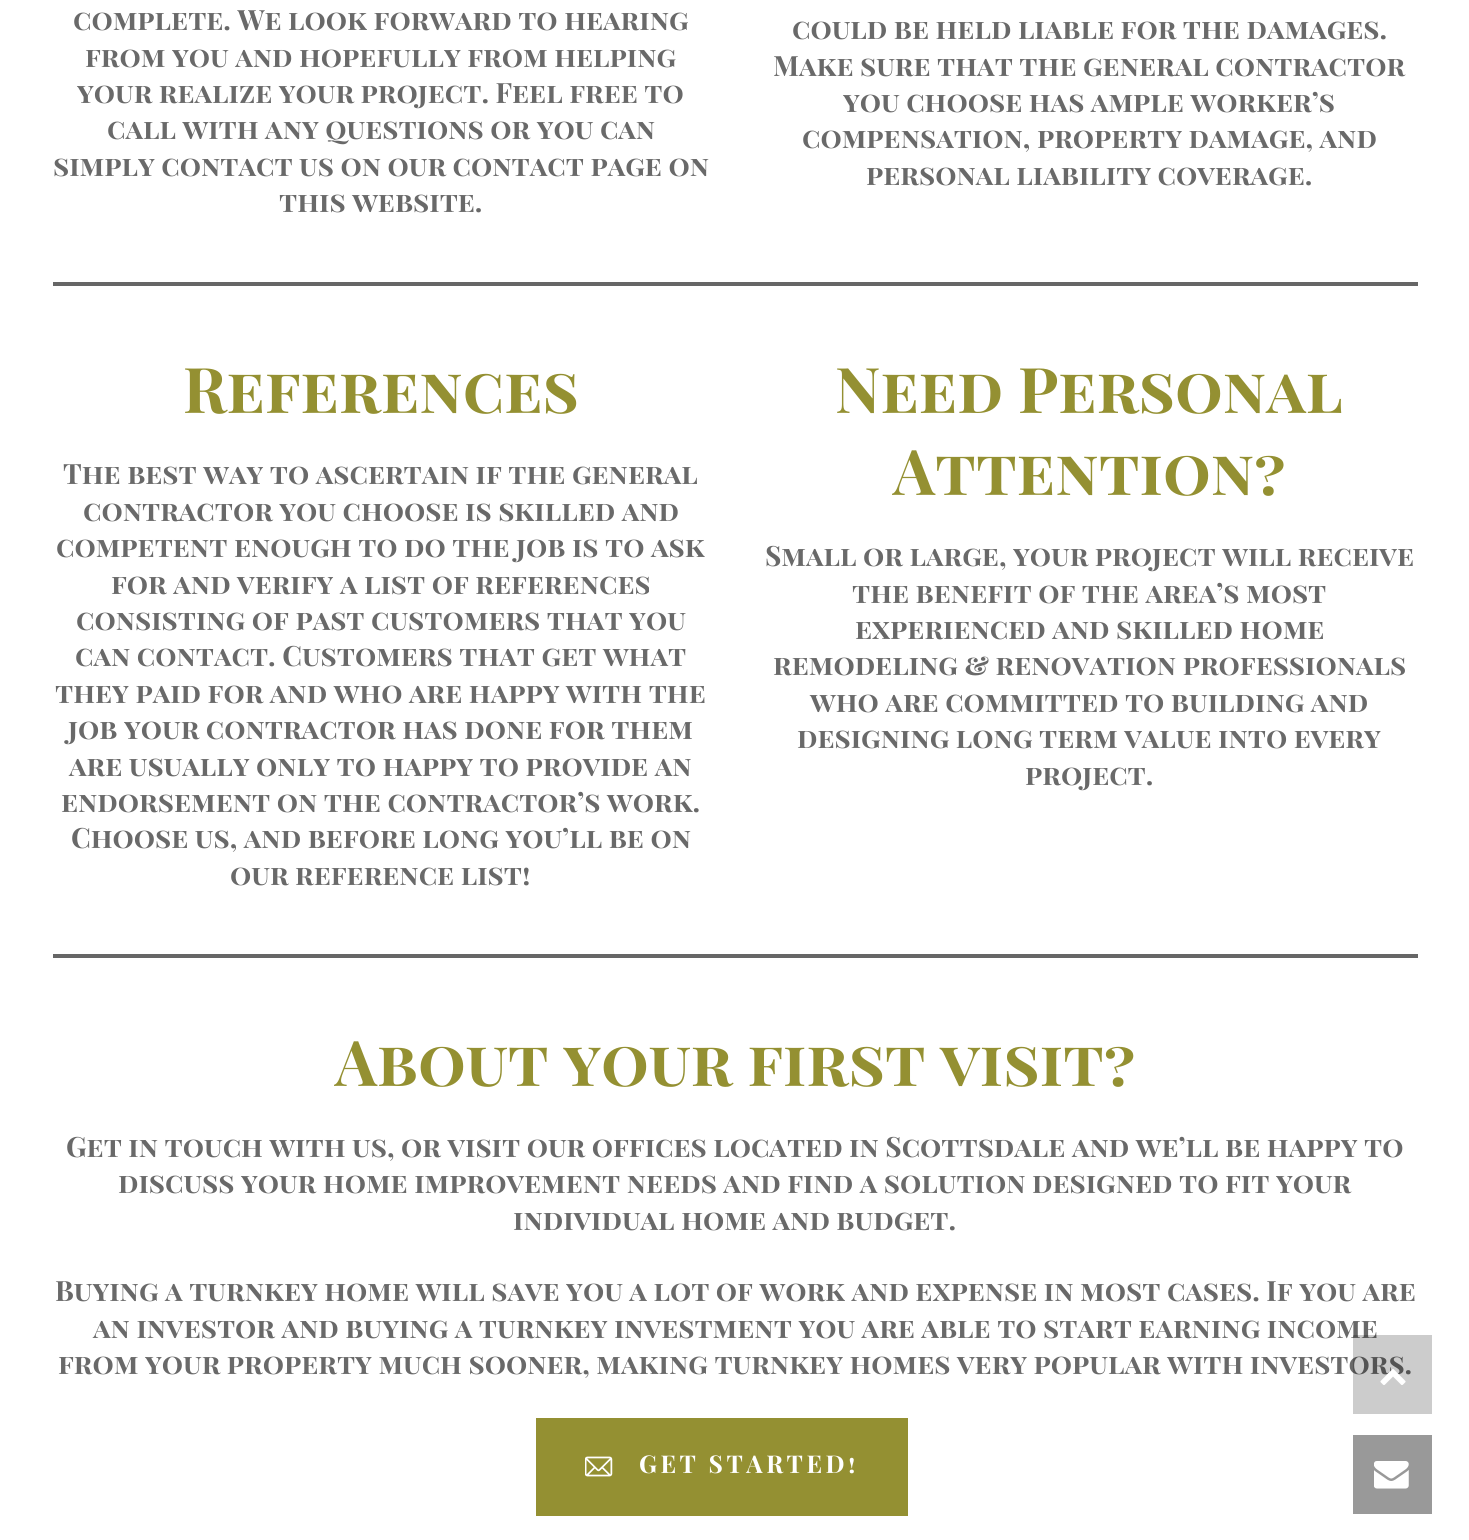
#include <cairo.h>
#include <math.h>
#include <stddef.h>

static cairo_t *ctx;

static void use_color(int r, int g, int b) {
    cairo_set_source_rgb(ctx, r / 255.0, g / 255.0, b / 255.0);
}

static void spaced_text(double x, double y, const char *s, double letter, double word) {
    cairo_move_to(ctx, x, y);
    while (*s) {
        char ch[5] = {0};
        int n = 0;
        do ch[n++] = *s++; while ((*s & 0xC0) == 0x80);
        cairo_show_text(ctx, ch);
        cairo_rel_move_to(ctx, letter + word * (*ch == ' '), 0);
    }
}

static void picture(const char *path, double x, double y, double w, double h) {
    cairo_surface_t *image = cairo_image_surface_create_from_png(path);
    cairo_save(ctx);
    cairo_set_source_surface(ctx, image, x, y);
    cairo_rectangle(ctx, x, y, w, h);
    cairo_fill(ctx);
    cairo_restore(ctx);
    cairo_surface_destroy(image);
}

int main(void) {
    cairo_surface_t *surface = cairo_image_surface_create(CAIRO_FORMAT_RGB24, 1469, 1540);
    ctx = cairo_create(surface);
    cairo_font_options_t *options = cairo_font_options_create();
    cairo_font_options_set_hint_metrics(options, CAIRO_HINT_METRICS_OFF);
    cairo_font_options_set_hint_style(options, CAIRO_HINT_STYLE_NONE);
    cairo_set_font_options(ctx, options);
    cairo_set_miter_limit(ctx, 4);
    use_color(255, 255, 255);
    cairo_paint(ctx);
    cairo_select_font_face(ctx, "Playfair Display SC", CAIRO_FONT_SLANT_NORMAL, CAIRO_FONT_WEIGHT_BOLD);
    cairo_set_font_size(ctx, 28);
    use_color(105, 105, 105);
    cairo_move_to(ctx, 73, 30);
    cairo_show_text(ctx, "complete. We look forward to hearing");
    cairo_move_to(ctx, 85, 67);
    cairo_show_text(ctx, "from you and hopefully from helping");
    cairo_move_to(ctx, 77, 103);
    cairo_show_text(ctx, "your realize your project. Feel free to");
    cairo_move_to(ctx, 107, 139);
    cairo_show_text(ctx, "call with any questions or you can");
    cairo_move_to(ctx, 53, 176);
    cairo_show_text(ctx, "simply contact us on our contact page on");
    cairo_move_to(ctx, 279, 212);
    cairo_show_text(ctx, "this website.");
    cairo_move_to(ctx, 792, 39);
    cairo_show_text(ctx, "could be held liable for the damages.");
    cairo_move_to(ctx, 773, 76);
    cairo_show_text(ctx, "Make sure that the general contractor");
    cairo_move_to(ctx, 843, 112);
    cairo_show_text(ctx, "you choose has ample worker’s");
    cairo_move_to(ctx, 802, 148);
    cairo_show_text(ctx, "compensation, property damage, and");
    cairo_move_to(ctx, 866, 185);
    cairo_show_text(ctx, "personal liability coverage.");
    use_color(102, 102, 102);
    cairo_rectangle(ctx, 53, 282, 1365, 4);
    cairo_fill(ctx);
    cairo_set_font_size(ctx, 63);
    use_color(148, 144, 50);
    cairo_move_to(ctx, 183, 413);
    cairo_show_text(ctx, "References");
    cairo_set_font_size(ctx, 28);
    use_color(105, 105, 105);
    cairo_move_to(ctx, 63, 484);
    cairo_show_text(ctx, "The best way to ascertain if the general");
    cairo_move_to(ctx, 83, 521);
    cairo_show_text(ctx, "contractor you choose is skilled and");
    cairo_move_to(ctx, 56, 557);
    cairo_show_text(ctx, "competent enough to do the job is to ask");
    cairo_move_to(ctx, 111, 594);
    cairo_show_text(ctx, "for and verify a list of references");
    cairo_move_to(ctx, 76, 630);
    cairo_show_text(ctx, "consisting of past customers that you");
    cairo_move_to(ctx, 75, 666);
    cairo_show_text(ctx, "can contact. Customers that get what");
    cairo_move_to(ctx, 55, 703);
    cairo_show_text(ctx, "they paid for and who are happy with the");
    cairo_move_to(ctx, 68, 739);
    cairo_show_text(ctx, "job your contractor has done for them");
    cairo_move_to(ctx, 69, 776);
    cairo_show_text(ctx, "are usually only to happy to provide an");
    cairo_move_to(ctx, 61, 812);
    cairo_show_text(ctx, "endorsement on the contractor’s work.");
    cairo_move_to(ctx, 71, 848);
    cairo_show_text(ctx, "Choose us, and before long you’ll be on");
    cairo_move_to(ctx, 230, 885);
    cairo_show_text(ctx, "our reference list!");
    cairo_set_font_size(ctx, 63);
    use_color(148, 144, 50);
    cairo_move_to(ctx, 835, 413);
    cairo_show_text(ctx, "Need Personal");
    cairo_move_to(ctx, 893, 495);
    cairo_show_text(ctx, "Attention?");
    cairo_set_font_size(ctx, 28);
    use_color(105, 105, 105);
    cairo_move_to(ctx, 765, 566);
    cairo_show_text(ctx, "Small or large, your project will receive");
    cairo_move_to(ctx, 852, 603);
    cairo_show_text(ctx, "the benefit of the area’s most");
    cairo_move_to(ctx, 855, 639);
    cairo_show_text(ctx, "experienced and skilled home");
    cairo_move_to(ctx, 773, 675);
    cairo_show_text(ctx, "remodeling & renovation professionals");
    cairo_move_to(ctx, 810, 712);
    cairo_show_text(ctx, "who are committed to building and");
    cairo_move_to(ctx, 797, 748);
    cairo_show_text(ctx, "designing long term value into every");
    cairo_move_to(ctx, 1025, 785);
    cairo_show_text(ctx, "project.");
    use_color(102, 102, 102);
    cairo_rectangle(ctx, 53, 954, 1365, 4);
    cairo_fill(ctx);
    cairo_set_font_size(ctx, 63);
    use_color(148, 144, 50);
    cairo_move_to(ctx, 335, 1086);
    cairo_show_text(ctx, "About your first visit?");
    cairo_set_font_size(ctx, 28);
    use_color(105, 105, 105);
    cairo_move_to(ctx, 66, 1157);
    cairo_show_text(ctx, "Get in touch with us, or visit our offices located in Scottsdale and we’ll be happy to");
    cairo_move_to(ctx, 118, 1193);
    cairo_show_text(ctx, "discuss your home improvement needs and find a solution designed to fit your");
    cairo_move_to(ctx, 513, 1230);
    cairo_show_text(ctx, "individual home and budget.");
    cairo_move_to(ctx, 55, 1301);
    cairo_show_text(ctx, "Buying a turnkey home will save you a lot of work and expense in most cases. If you are");
    cairo_move_to(ctx, 93, 1338);
    cairo_show_text(ctx, "an investor and buying a turnkey investment you are able to start earning income");
    cairo_move_to(ctx, 58, 1374);
    cairo_show_text(ctx, "from your property much sooner, making turnkey homes very popular with investors.");
    use_color(148, 144, 50);
    cairo_rectangle(ctx, 536, 1418, 372, 98);
    cairo_fill(ctx);
    picture("img1.png", 585, 1456, 28, 21);
    cairo_set_font_size(ctx, 24.5);
    use_color(255, 255, 255);
    spaced_text(639, 1473, "GET STARTED!", 3.5, 0);
    cairo_set_source_rgba(ctx, 0, 0, 0, 0.2);
    cairo_rectangle(ctx, 1353, 1335, 79, 79);
    cairo_fill(ctx);
    picture("img2.png", 1380, 1369, 26, 16);
    use_color(153, 153, 153);
    cairo_rectangle(ctx, 1353, 1435, 79, 79);
    cairo_fill(ctx);
    picture("img3.png", 1374, 1461, 35, 28);
    cairo_surface_write_to_png(surface, "result.png");
    cairo_font_options_destroy(options);
    cairo_destroy(ctx);
    cairo_surface_destroy(surface);
    return 0;
}
